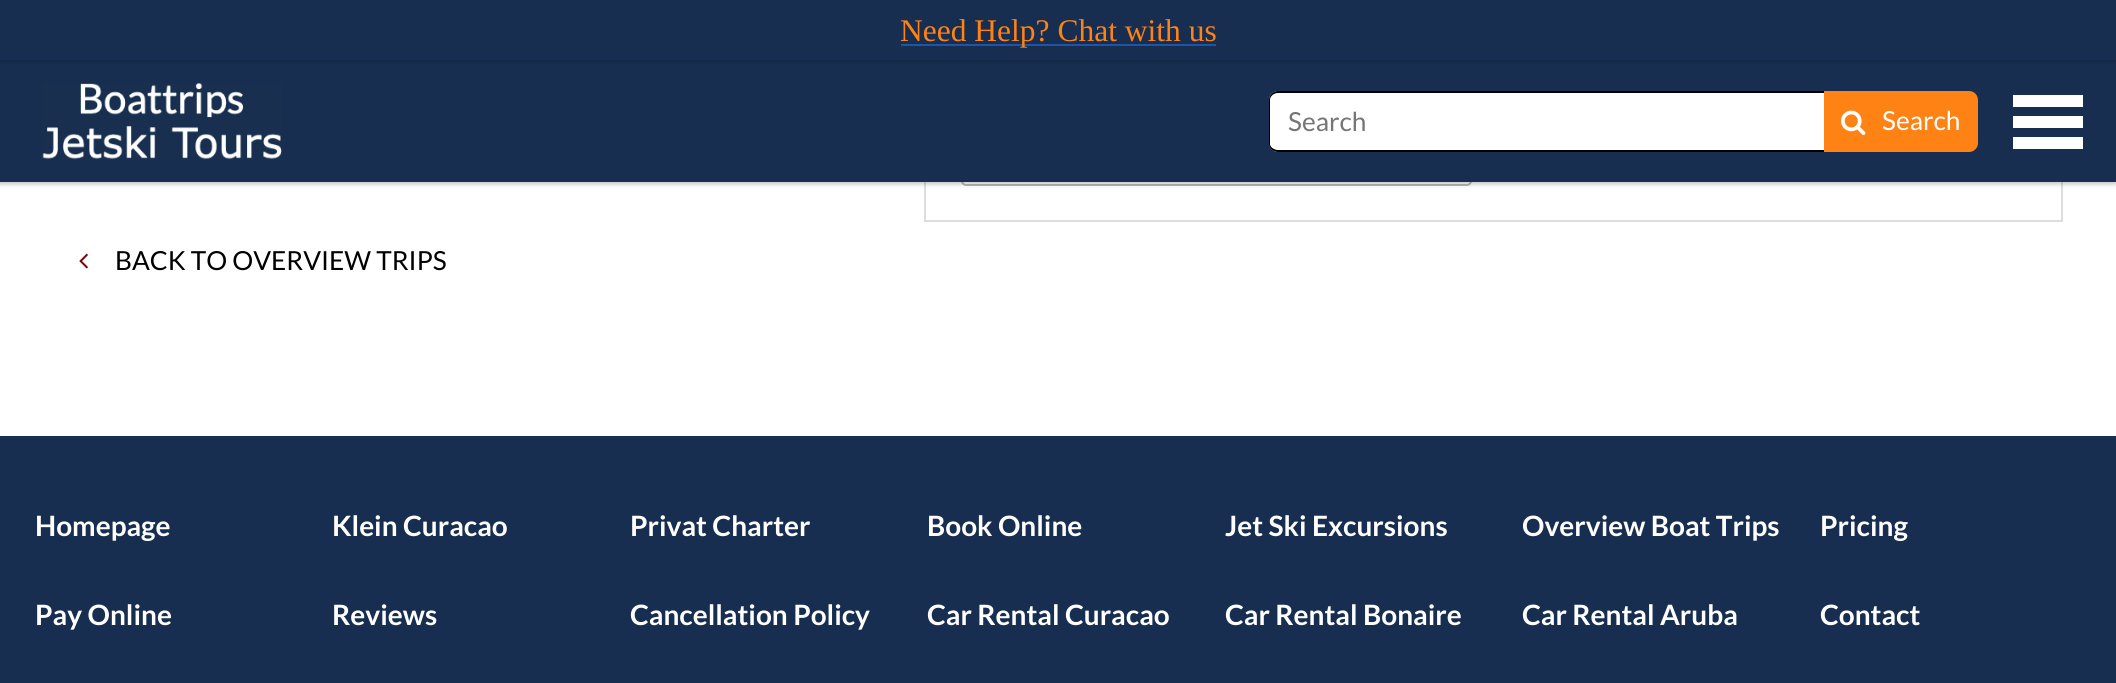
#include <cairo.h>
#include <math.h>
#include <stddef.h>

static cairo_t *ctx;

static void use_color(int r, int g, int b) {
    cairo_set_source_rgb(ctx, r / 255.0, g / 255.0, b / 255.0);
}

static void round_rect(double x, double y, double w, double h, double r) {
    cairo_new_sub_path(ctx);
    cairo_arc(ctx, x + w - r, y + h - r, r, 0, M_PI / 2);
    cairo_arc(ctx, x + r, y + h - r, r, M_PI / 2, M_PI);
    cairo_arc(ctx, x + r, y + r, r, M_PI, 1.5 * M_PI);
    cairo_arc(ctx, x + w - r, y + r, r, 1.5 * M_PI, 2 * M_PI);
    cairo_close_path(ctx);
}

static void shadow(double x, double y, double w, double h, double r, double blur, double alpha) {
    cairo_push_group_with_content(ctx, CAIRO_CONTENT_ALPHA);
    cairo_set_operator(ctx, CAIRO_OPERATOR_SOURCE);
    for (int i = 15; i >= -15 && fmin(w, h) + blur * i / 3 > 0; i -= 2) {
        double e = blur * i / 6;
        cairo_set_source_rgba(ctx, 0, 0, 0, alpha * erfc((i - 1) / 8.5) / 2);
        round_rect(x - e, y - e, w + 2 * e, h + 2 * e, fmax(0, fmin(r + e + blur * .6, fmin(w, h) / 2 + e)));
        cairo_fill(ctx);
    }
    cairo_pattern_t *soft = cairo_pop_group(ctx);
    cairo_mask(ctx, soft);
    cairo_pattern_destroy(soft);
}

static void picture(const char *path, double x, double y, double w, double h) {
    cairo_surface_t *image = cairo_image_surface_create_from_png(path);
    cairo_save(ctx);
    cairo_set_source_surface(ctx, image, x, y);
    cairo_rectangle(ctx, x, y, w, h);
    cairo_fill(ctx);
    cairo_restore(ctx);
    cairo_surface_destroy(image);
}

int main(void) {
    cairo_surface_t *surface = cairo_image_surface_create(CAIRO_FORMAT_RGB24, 2116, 683);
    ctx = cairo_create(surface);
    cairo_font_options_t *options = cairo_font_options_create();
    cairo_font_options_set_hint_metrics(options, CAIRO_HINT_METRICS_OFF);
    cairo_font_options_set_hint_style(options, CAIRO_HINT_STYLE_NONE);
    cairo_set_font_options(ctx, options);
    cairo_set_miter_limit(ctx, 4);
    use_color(255, 255, 255);
    cairo_paint(ctx);
    cairo_rectangle(ctx, 925, 45, 1137, 176);
    use_color(221, 221, 221);
    cairo_stroke(ctx);
    round_rect(962, 124, 509, 61, 4);
    use_color(184, 184, 184);
    cairo_stroke(ctx);
    use_color(0, 0, 0);
    shadow(-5, 58, 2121, 126, 0, 2.5, 0.25);
    use_color(23, 46, 80);
    cairo_rectangle(ctx, 0, 60, 2116, 122);
    cairo_fill(ctx);
    use_color(0, 0, 0);
    shadow(-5, -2, 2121, 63, 0, 2.5, 0.25);
    use_color(23, 46, 80);
    cairo_rectangle(ctx, 0, 0, 2116, 60);
    cairo_fill(ctx);
    use_color(30, 84, 170);
    cairo_rectangle(ctx, 901, 44, 315, 2);
    cairo_fill(ctx);
    cairo_select_font_face(ctx, "Liberation Serif", CAIRO_FONT_SLANT_NORMAL, CAIRO_FONT_WEIGHT_NORMAL);
    cairo_set_font_size(ctx, 31.5);
    use_color(255, 130, 20);
    cairo_move_to(ctx, 900, 41);
    cairo_show_text(ctx, "Need Help? Chat with us");
    picture("img1.png", 42, 83, 240, 77);
    use_color(255, 255, 255);
    cairo_new_path(ctx);
    cairo_move_to(ctx, 1278, 91);
    cairo_line_to(ctx, 1824, 91);
    cairo_line_to(ctx, 1824, 152);
    cairo_line_to(ctx, 1278, 152);
    cairo_curve_to(ctx, 1273, 152, 1269, 148, 1269, 143);
    cairo_line_to(ctx, 1269, 100);
    cairo_curve_to(ctx, 1269, 95, 1273, 91, 1278, 91);
    cairo_close_path(ctx);
    cairo_fill(ctx);
    use_color(0, 0, 0);
    cairo_set_fill_rule(ctx, CAIRO_FILL_RULE_EVEN_ODD);
    cairo_new_path(ctx);
    cairo_move_to(ctx, 1278, 91);
    cairo_line_to(ctx, 1824, 91);
    cairo_line_to(ctx, 1824, 152);
    cairo_line_to(ctx, 1278, 152);
    cairo_curve_to(ctx, 1273, 152, 1269, 148, 1269, 144);
    cairo_line_to(ctx, 1269, 100);
    cairo_curve_to(ctx, 1269, 95, 1273, 91, 1278, 91);
    cairo_close_path(ctx);
    cairo_move_to(ctx, 1278, 93);
    cairo_line_to(ctx, 1824, 93);
    cairo_line_to(ctx, 1824, 150);
    cairo_line_to(ctx, 1278, 150);
    cairo_curve_to(ctx, 1274, 150, 1270, 147, 1270, 144);
    cairo_line_to(ctx, 1270, 100);
    cairo_curve_to(ctx, 1270, 96, 1274, 93, 1278, 93);
    cairo_close_path(ctx);
    cairo_fill(ctx);
    cairo_select_font_face(ctx, "Lato", CAIRO_FONT_SLANT_NORMAL, CAIRO_FONT_WEIGHT_NORMAL);
    cairo_set_font_size(ctx, 26.25);
    use_color(117, 117, 117);
    cairo_move_to(ctx, 1288, 131);
    cairo_show_text(ctx, "Search");
    use_color(255, 130, 20);
    cairo_new_path(ctx);
    cairo_move_to(ctx, 1824, 91);
    cairo_line_to(ctx, 1969, 91);
    cairo_curve_to(ctx, 1974, 91, 1978, 95, 1978, 100);
    cairo_line_to(ctx, 1978, 143);
    cairo_curve_to(ctx, 1978, 148, 1974, 152, 1969, 152);
    cairo_line_to(ctx, 1824, 152);
    cairo_close_path(ctx);
    cairo_fill(ctx);
    picture("img2.png", 1841, 110, 25, 25);
    use_color(255, 255, 255);
    cairo_move_to(ctx, 1882, 130);
    cairo_show_text(ctx, "Search");
    cairo_rectangle(ctx, 2013, 95, 70, 12);
    cairo_fill(ctx);
    cairo_rectangle(ctx, 2013, 116, 70, 12);
    cairo_fill(ctx);
    cairo_rectangle(ctx, 2013, 137, 70, 12);
    cairo_fill(ctx);
    picture("img3.png", 79, 253, 9, 16);
    use_color(0, 0, 0);
    cairo_move_to(ctx, 115, 270);
    cairo_show_text(ctx, "BACK TO OVERVIEW TRIPS");
    use_color(23, 46, 80);
    cairo_rectangle(ctx, 0, 436, 2116, 247);
    cairo_fill(ctx);
    cairo_select_font_face(ctx, "Lato", CAIRO_FONT_SLANT_NORMAL, CAIRO_FONT_WEIGHT_BOLD);
    cairo_set_font_size(ctx, 28);
    use_color(255, 255, 255);
    cairo_move_to(ctx, 35, 536);
    cairo_show_text(ctx, "Homepage");
    cairo_move_to(ctx, 332, 536);
    cairo_show_text(ctx, "Klein Curacao");
    cairo_move_to(ctx, 630, 536);
    cairo_show_text(ctx, "Privat Charter");
    cairo_move_to(ctx, 927, 536);
    cairo_show_text(ctx, "Book Online");
    cairo_move_to(ctx, 1225, 536);
    cairo_show_text(ctx, "Jet Ski Excursions");
    cairo_move_to(ctx, 1522, 536);
    cairo_show_text(ctx, "Overview Boat Trips");
    cairo_move_to(ctx, 1820, 536);
    cairo_show_text(ctx, "Pricing");
    cairo_move_to(ctx, 35, 625);
    cairo_show_text(ctx, "Pay Online");
    cairo_move_to(ctx, 332, 625);
    cairo_show_text(ctx, "Reviews");
    cairo_move_to(ctx, 630, 625);
    cairo_show_text(ctx, "Cancellation Policy");
    cairo_move_to(ctx, 927, 625);
    cairo_show_text(ctx, "Car Rental Curacao");
    cairo_move_to(ctx, 1225, 625);
    cairo_show_text(ctx, "Car Rental Bonaire");
    cairo_move_to(ctx, 1522, 625);
    cairo_show_text(ctx, "Car Rental Aruba");
    cairo_move_to(ctx, 1820, 625);
    cairo_show_text(ctx, "Contact");
    cairo_surface_write_to_png(surface, "result.png");
    cairo_font_options_destroy(options);
    cairo_destroy(ctx);
    cairo_surface_destroy(surface);
    return 0;
}
